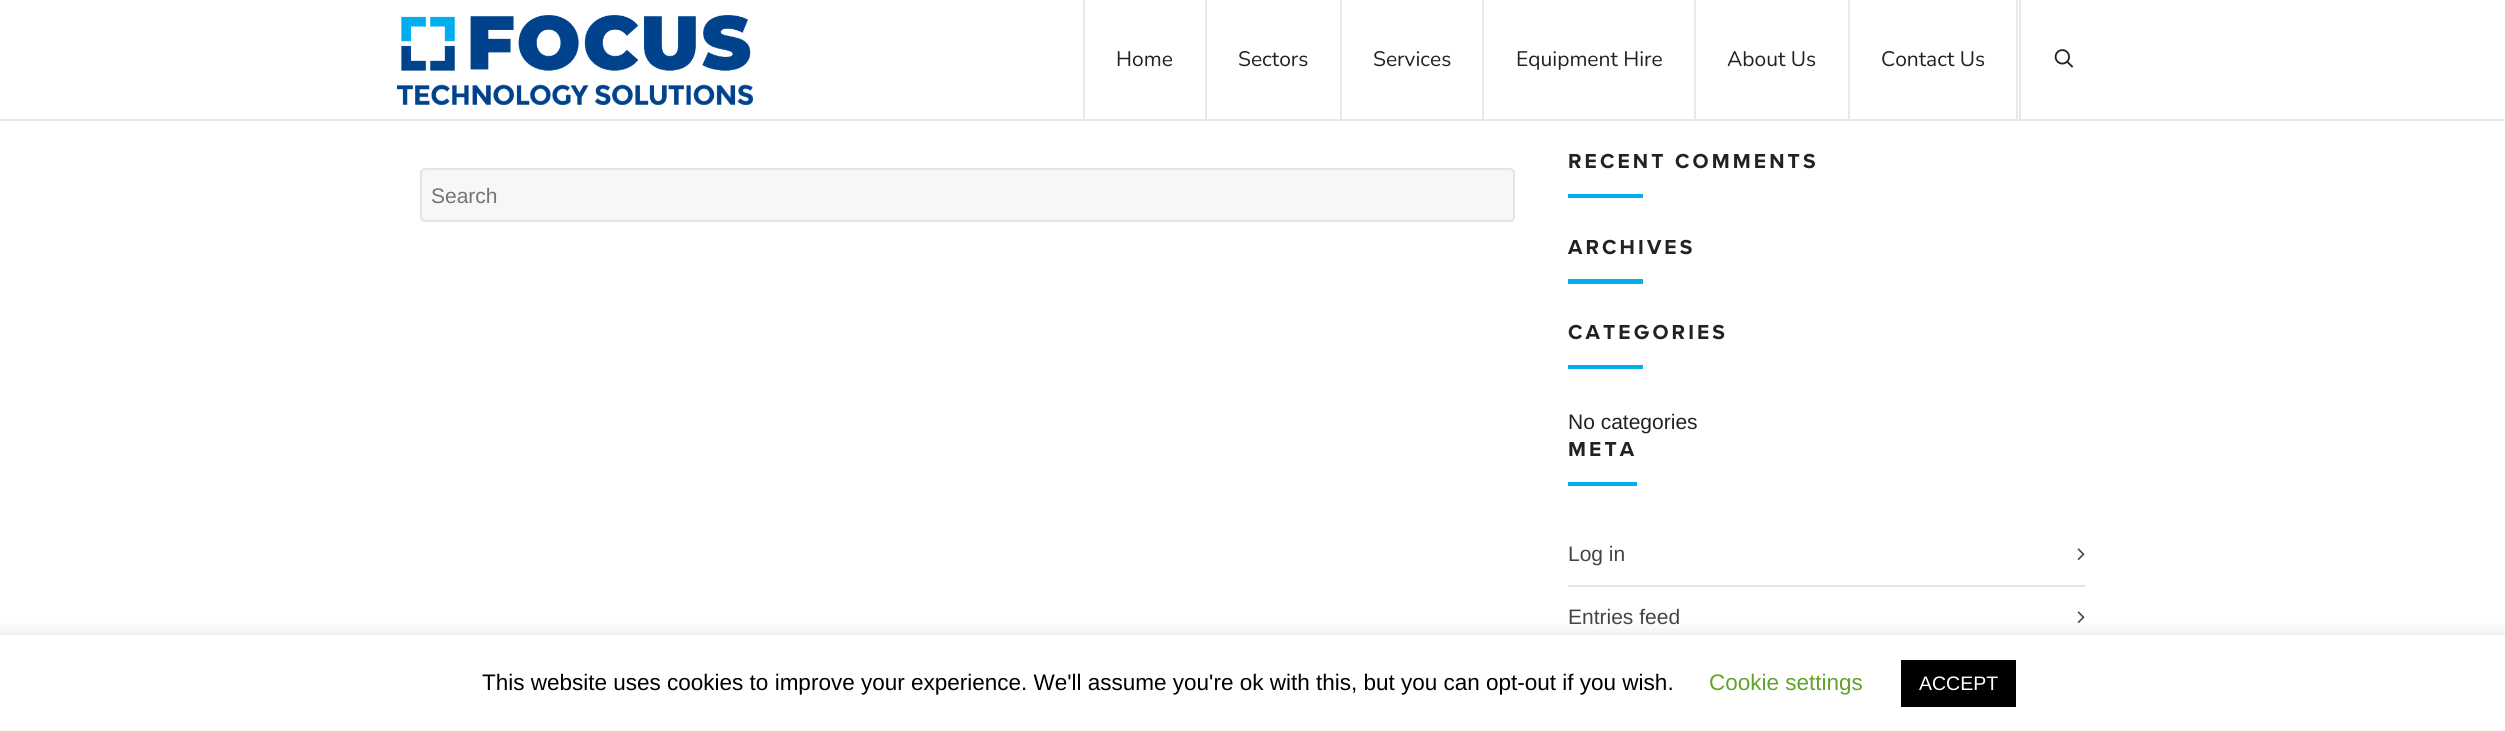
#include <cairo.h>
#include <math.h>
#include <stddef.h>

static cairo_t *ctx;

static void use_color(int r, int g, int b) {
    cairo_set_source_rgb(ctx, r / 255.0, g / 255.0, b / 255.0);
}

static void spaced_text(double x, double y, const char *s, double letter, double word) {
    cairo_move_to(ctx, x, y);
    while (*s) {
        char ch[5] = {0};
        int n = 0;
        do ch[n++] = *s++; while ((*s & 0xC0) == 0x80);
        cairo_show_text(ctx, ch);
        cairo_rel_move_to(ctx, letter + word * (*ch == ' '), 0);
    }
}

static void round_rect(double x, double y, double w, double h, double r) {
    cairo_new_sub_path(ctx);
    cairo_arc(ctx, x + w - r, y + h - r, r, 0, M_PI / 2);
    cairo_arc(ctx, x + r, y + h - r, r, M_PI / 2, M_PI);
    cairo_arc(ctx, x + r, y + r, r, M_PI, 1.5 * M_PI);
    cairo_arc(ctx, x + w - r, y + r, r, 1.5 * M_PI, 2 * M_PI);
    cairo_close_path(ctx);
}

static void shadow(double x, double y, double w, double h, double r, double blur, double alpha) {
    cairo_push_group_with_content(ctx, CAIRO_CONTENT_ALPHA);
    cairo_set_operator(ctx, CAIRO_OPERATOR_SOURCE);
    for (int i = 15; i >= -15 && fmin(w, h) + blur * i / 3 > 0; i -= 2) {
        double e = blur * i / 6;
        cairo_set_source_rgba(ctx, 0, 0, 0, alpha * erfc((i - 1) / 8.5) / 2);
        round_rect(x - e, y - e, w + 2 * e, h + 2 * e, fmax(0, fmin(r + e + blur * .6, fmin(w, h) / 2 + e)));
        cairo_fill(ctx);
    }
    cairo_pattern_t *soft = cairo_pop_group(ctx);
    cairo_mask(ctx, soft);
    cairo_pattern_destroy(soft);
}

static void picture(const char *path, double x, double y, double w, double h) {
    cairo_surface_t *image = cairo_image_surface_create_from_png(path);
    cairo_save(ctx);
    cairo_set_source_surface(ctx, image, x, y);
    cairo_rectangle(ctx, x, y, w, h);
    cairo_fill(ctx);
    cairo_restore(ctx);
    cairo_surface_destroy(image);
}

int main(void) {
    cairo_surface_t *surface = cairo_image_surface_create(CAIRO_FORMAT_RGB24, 2505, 731);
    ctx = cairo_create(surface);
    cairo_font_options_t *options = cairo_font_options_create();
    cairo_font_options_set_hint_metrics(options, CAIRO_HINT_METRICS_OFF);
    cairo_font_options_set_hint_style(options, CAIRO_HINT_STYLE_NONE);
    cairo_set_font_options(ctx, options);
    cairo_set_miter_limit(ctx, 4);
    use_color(255, 255, 255);
    cairo_paint(ctx);
    use_color(232, 232, 232);
    cairo_rectangle(ctx, 0, 119, 2505, 2);
    cairo_fill(ctx);
    picture("img1.png", 397, 15, 356, 90);
    cairo_rectangle(ctx, 2016, 0, 2, 120);
    cairo_fill(ctx);
    cairo_rectangle(ctx, 1083, 0, 2, 120);
    cairo_fill(ctx);
    cairo_select_font_face(ctx, "Nunito", CAIRO_FONT_SLANT_NORMAL, CAIRO_FONT_WEIGHT_NORMAL);
    cairo_set_font_size(ctx, 21);
    use_color(34, 34, 34);
    cairo_move_to(ctx, 1116, 66);
    cairo_show_text(ctx, "Home");
    use_color(232, 232, 232);
    cairo_rectangle(ctx, 1205, 0, 2, 120);
    cairo_fill(ctx);
    use_color(34, 34, 34);
    cairo_move_to(ctx, 1238, 66);
    cairo_show_text(ctx, "Sectors");
    use_color(232, 232, 232);
    cairo_rectangle(ctx, 1340, 0, 2, 120);
    cairo_fill(ctx);
    use_color(34, 34, 34);
    cairo_move_to(ctx, 1373, 66);
    cairo_show_text(ctx, "Services");
    use_color(232, 232, 232);
    cairo_rectangle(ctx, 1482, 0, 2, 120);
    cairo_fill(ctx);
    use_color(34, 34, 34);
    cairo_move_to(ctx, 1516, 66);
    cairo_show_text(ctx, "Equipment Hire");
    use_color(232, 232, 232);
    cairo_rectangle(ctx, 1694, 0, 2, 120);
    cairo_fill(ctx);
    use_color(34, 34, 34);
    cairo_move_to(ctx, 1727, 66);
    cairo_show_text(ctx, "About Us");
    use_color(232, 232, 232);
    cairo_rectangle(ctx, 1848, 0, 2, 120);
    cairo_fill(ctx);
    use_color(34, 34, 34);
    cairo_move_to(ctx, 1881, 66);
    cairo_show_text(ctx, "Contact Us");
    use_color(232, 232, 232);
    cairo_rectangle(ctx, 2019, 0, 2, 120);
    cairo_fill(ctx);
    picture("img2.png", 2054, 49, 20, 19);
    use_color(247, 247, 247);
    round_rect(421, 169, 1093, 52, 4);
    cairo_fill_preserve(ctx);
    use_color(228, 228, 228);
    cairo_stroke(ctx);
    cairo_select_font_face(ctx, "Liberation Sans", CAIRO_FONT_SLANT_NORMAL, CAIRO_FONT_WEIGHT_NORMAL);
    use_color(117, 117, 117);
    cairo_move_to(ctx, 431, 203);
    cairo_show_text(ctx, "Search");
    cairo_select_font_face(ctx, "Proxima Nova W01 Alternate", CAIRO_FONT_SLANT_NORMAL, CAIRO_FONT_WEIGHT_BOLD);
    use_color(34, 34, 34);
    spaced_text(1568, 168, "RECENT COMMENTS", 3.1, 0);
    use_color(0, 176, 237);
    cairo_rectangle(ctx, 1568, 194, 75, 4);
    cairo_fill(ctx);
    use_color(34, 34, 34);
    spaced_text(1568, 254, "ARCHIVES", 3.1, 0);
    use_color(0, 176, 237);
    cairo_rectangle(ctx, 1568, 279, 75, 5);
    cairo_fill(ctx);
    use_color(34, 34, 34);
    spaced_text(1568, 339, "CATEGORIES", 3.1, 0);
    use_color(0, 176, 237);
    cairo_rectangle(ctx, 1568, 365, 75, 4);
    cairo_fill(ctx);
    cairo_select_font_face(ctx, "Liberation Sans", CAIRO_FONT_SLANT_NORMAL, CAIRO_FONT_WEIGHT_NORMAL);
    use_color(34, 34, 34);
    cairo_move_to(ctx, 1568, 429);
    cairo_show_text(ctx, "No categories");
    cairo_select_font_face(ctx, "Proxima Nova W01 Alternate", CAIRO_FONT_SLANT_NORMAL, CAIRO_FONT_WEIGHT_BOLD);
    spaced_text(1568, 456, "META", 3.1, 0);
    use_color(0, 176, 237);
    cairo_rectangle(ctx, 1568, 482, 69, 4);
    cairo_fill(ctx);
    cairo_select_font_face(ctx, "Liberation Sans", CAIRO_FONT_SLANT_NORMAL, CAIRO_FONT_WEIGHT_NORMAL);
    use_color(68, 68, 68);
    cairo_move_to(ctx, 1568, 561);
    cairo_show_text(ctx, "Log in");
    picture("img3.png", 2077, 548, 8, 12);
    use_color(228, 228, 228);
    cairo_rectangle(ctx, 1568, 585, 517, 2);
    cairo_fill(ctx);
    use_color(68, 68, 68);
    cairo_move_to(ctx, 1568, 624);
    cairo_show_text(ctx, "Entries feed");
    picture("img3.png", 2077, 611, 8, 12);
    use_color(172, 171, 171);
    shadow(0, 633, 2505, 98, 0, 7.5, 0.3);
    use_color(255, 255, 255);
    cairo_rectangle(ctx, 0, 635, 2505, 96);
    cairo_fill(ctx);
    cairo_set_font_size(ctx, 22.5);
    use_color(0, 0, 0);
    cairo_move_to(ctx, 482, 690);
    cairo_show_text(ctx, "This website uses cookies to improve your experience. We'll assume you're ok with this, but you can opt-out if you wish.");
    use_color(98, 163, 41);
    cairo_move_to(ctx, 1709, 690);
    cairo_show_text(ctx, "Cookie settings");
    use_color(0, 0, 0);
    cairo_rectangle(ctx, 1901, 660, 115, 47);
    cairo_fill(ctx);
    cairo_set_font_size(ctx, 19.5);
    use_color(255, 255, 255);
    cairo_move_to(ctx, 1919, 690);
    cairo_show_text(ctx, "ACCEPT");
    cairo_surface_write_to_png(surface, "result.png");
    cairo_font_options_destroy(options);
    cairo_destroy(ctx);
    cairo_surface_destroy(surface);
    return 0;
}
